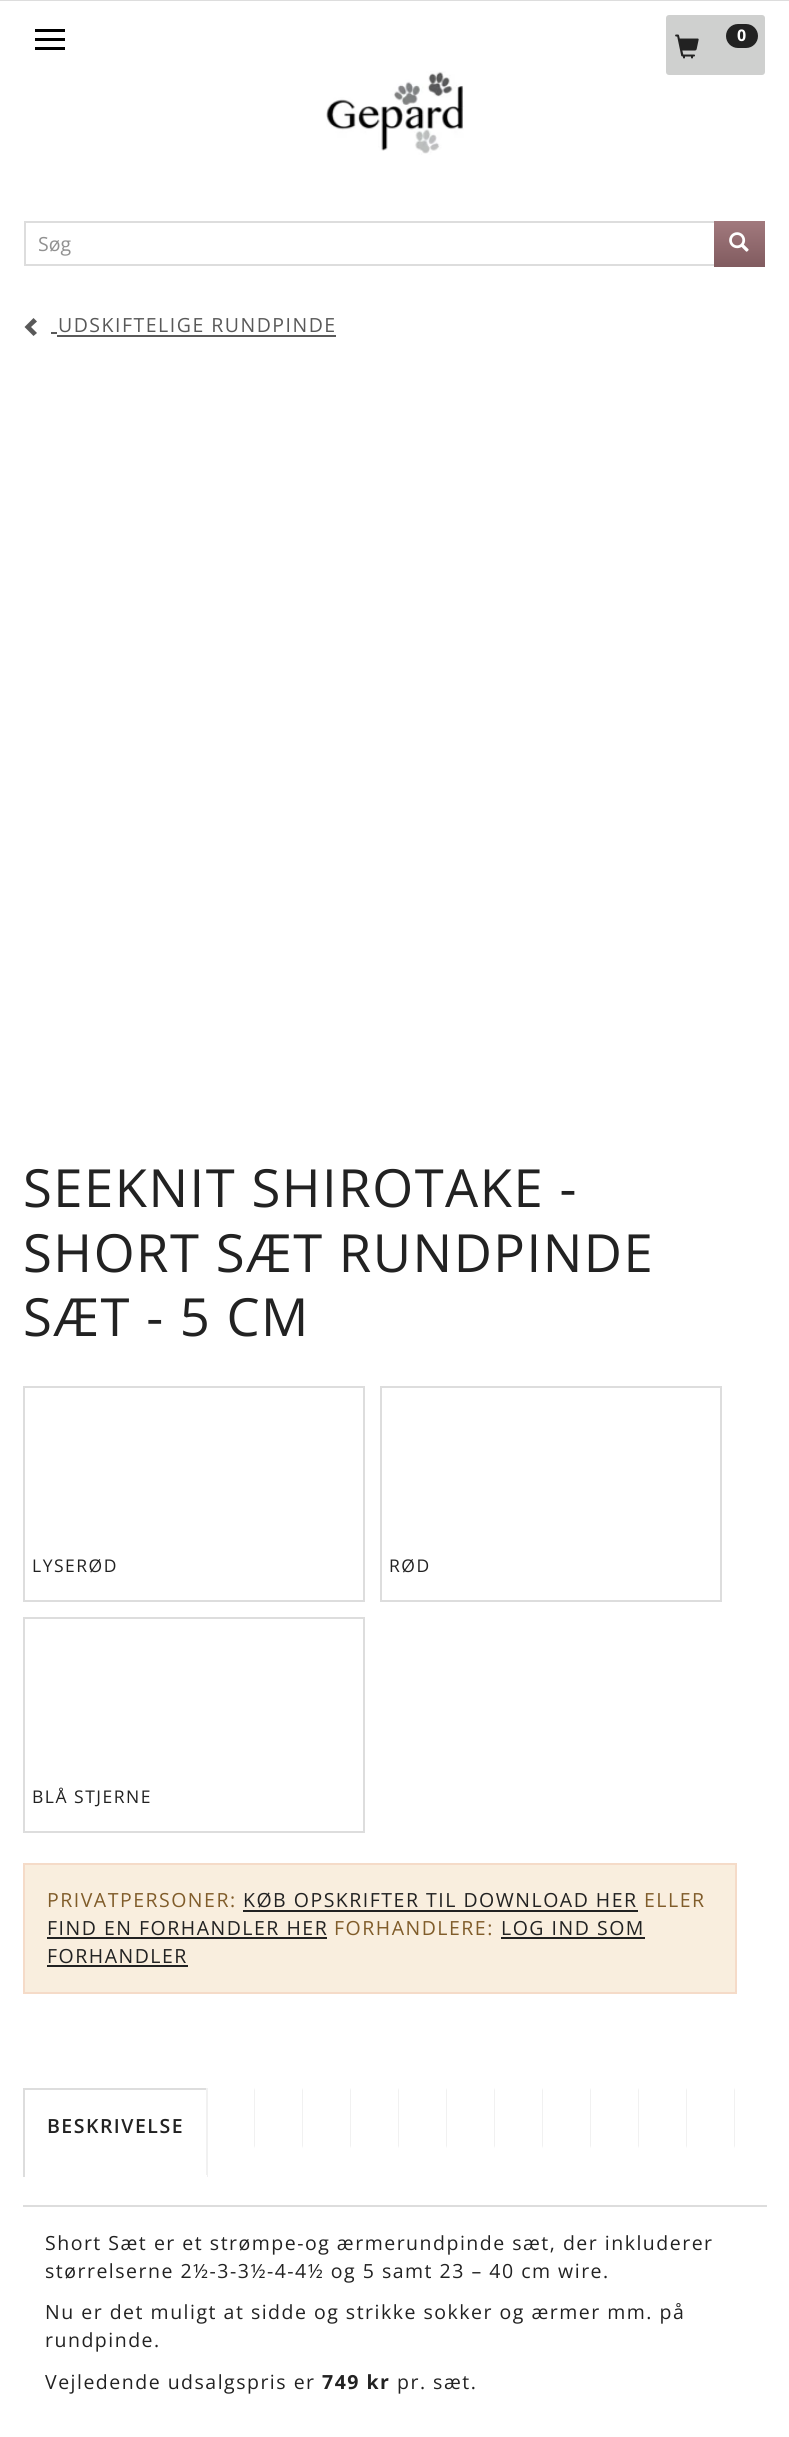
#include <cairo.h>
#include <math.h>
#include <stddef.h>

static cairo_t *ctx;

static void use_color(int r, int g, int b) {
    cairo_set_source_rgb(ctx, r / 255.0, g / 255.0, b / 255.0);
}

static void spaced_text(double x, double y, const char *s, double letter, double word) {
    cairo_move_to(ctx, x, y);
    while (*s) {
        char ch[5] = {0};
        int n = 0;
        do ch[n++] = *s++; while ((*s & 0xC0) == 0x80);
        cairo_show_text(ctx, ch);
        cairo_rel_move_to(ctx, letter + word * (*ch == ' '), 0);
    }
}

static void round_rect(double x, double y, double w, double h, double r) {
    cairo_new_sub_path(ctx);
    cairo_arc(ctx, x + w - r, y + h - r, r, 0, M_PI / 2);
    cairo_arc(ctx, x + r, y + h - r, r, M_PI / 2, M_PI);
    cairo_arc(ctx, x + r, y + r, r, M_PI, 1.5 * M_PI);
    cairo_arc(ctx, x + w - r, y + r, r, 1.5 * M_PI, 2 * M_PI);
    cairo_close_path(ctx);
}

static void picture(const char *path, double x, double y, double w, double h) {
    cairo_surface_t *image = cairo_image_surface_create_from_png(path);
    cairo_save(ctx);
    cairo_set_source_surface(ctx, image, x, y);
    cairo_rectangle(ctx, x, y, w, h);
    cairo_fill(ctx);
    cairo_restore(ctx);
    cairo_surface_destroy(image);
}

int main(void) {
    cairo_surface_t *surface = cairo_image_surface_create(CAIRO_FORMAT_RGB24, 789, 2437);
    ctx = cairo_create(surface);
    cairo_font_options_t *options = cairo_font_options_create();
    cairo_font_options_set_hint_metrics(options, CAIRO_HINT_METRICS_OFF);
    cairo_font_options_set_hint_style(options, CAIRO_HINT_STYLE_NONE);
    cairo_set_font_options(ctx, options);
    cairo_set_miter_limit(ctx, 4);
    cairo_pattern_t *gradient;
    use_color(255, 255, 255);
    cairo_paint(ctx);
    use_color(221, 221, 221);
    cairo_rectangle(ctx, 0, 0, 789, 1);
    cairo_fill(ctx);
    use_color(0, 0, 0);
    cairo_rectangle(ctx, 35, 29, 30, 3);
    cairo_fill(ctx);
    cairo_rectangle(ctx, 35, 38, 30, 3);
    cairo_fill(ctx);
    cairo_rectangle(ctx, 35, 47, 30, 3);
    cairo_fill(ctx);
    use_color(207, 208, 207);
    round_rect(666, 15, 99, 60, 3);
    cairo_fill(ctx);
    picture("img1.png", 675, 34, 24, 25);
    use_color(34, 34, 34);
    round_rect(726, 24, 32, 24, 12);
    cairo_fill(ctx);
    cairo_select_font_face(ctx, "Open Sans", CAIRO_FONT_SLANT_NORMAL, CAIRO_FONT_WEIGHT_BOLD);
    cairo_set_font_size(ctx, 16);
    use_color(255, 255, 255);
    spaced_text(737, 41, "0", 1.5, 0);
    picture("img2.png", 326, 71, 138, 84);
    cairo_rectangle(ctx, 25, 222, 739, 43);
    use_color(221, 221, 221);
    cairo_stroke(ctx);
    cairo_select_font_face(ctx, "Open Sans", CAIRO_FONT_SLANT_NORMAL, CAIRO_FONT_WEIGHT_NORMAL);
    cairo_set_font_size(ctx, 19.5);
    use_color(145, 145, 145);
    cairo_move_to(ctx, 38, 251);
    cairo_show_text(ctx, "Søg");
    gradient = cairo_pattern_create_linear(740, 220, 740, 267);
    cairo_pattern_add_color_stop_rgba(gradient, 0, 0.635, 0.478, 0.494, 1);
    cairo_pattern_add_color_stop_rgba(gradient, 1, 0.506, 0.357, 0.373, 1);
    cairo_set_source(ctx, gradient);
    cairo_pattern_destroy(gradient);
    cairo_rectangle(ctx, 714, 221, 51, 46);
    cairo_fill(ctx);
    picture("img3.png", 729, 232, 20, 20);
    use_color(89, 89, 89);
    cairo_new_path(ctx);
    cairo_move_to(ctx, 37, 321.5);
    cairo_line_to(ctx, 31, 327);
    cairo_line_to(ctx, 37, 333);
    cairo_line_to(ctx, 33.5, 336);
    cairo_line_to(ctx, 24.5, 327);
    cairo_line_to(ctx, 33.5, 318);
    cairo_close_path(ctx);
    cairo_fill(ctx);
    cairo_rectangle(ctx, 51, 332, 6, 2);
    cairo_fill(ctx);
    spaced_text(58, 332, "UDSKIFTELIGE RUNDPINDE", 1.5, 0);
    cairo_rectangle(ctx, 57, 335, 279, 2);
    cairo_fill(ctx);
    cairo_set_font_size(ctx, 52.6);
    use_color(34, 34, 34);
    spaced_text(23, 1207, "SEEKNIT SHIROTAKE -", 1.5, 0);
    spaced_text(23, 1272, "SHORT SÆT RUNDPINDE", 1.5, 0);
    spaced_text(23, 1336, "SÆT - 5 CM", 1.5, 0);
    cairo_rectangle(ctx, 24, 1387, 340, 214);
    use_color(221, 221, 221);
    cairo_stroke(ctx);
    cairo_set_font_size(ctx, 17.5);
    use_color(34, 34, 34);
    spaced_text(32, 1572, "LYSERØD", 1.5, 0);
    cairo_rectangle(ctx, 381, 1387, 340, 214);
    use_color(221, 221, 221);
    cairo_stroke(ctx);
    use_color(34, 34, 34);
    spaced_text(389, 1572, "RØD", 1.5, 0);
    cairo_rectangle(ctx, 24, 1618, 340, 214);
    use_color(221, 221, 221);
    cairo_stroke(ctx);
    use_color(34, 34, 34);
    spaced_text(32, 1803, "BLÅ STJERNE", 1.5, 0);
    use_color(249, 238, 222);
    cairo_rectangle(ctx, 24, 1864, 712, 129);
    cairo_fill_preserve(ctx);
    use_color(245, 219, 200);
    cairo_stroke(ctx);
    cairo_set_font_size(ctx, 19.5);
    use_color(128, 92, 42);
    spaced_text(47, 1907, "PRIVATPERSONER:", 1.5, 0);
    use_color(34, 34, 34);
    spaced_text(243, 1907, "KØB OPSKRIFTER TIL DOWNLOAD HER", 1.5, 0);
    cairo_rectangle(ctx, 243, 1910, 395, 2);
    cairo_fill(ctx);
    use_color(128, 92, 42);
    spaced_text(644, 1907, "ELLER", 1.5, 0);
    use_color(34, 34, 34);
    spaced_text(47, 1935, "FIND EN FORHANDLER HER", 1.5, 0);
    cairo_rectangle(ctx, 47, 1937, 280, 2);
    cairo_fill(ctx);
    use_color(128, 92, 42);
    spaced_text(334, 1935, "FORHANDLERE:", 1.5, 0);
    use_color(34, 34, 34);
    spaced_text(501, 1935, "LOG IND SOM", 1.5, 0);
    cairo_rectangle(ctx, 501, 1937, 144, 2);
    cairo_fill(ctx);
    spaced_text(47, 1963, "FORHANDLER", 1.5, 0);
    cairo_rectangle(ctx, 47, 1965, 141, 2);
    cairo_fill(ctx);
    use_color(221, 221, 221);
    cairo_rectangle(ctx, 23, 2205, 744, 2);
    cairo_fill(ctx);
    cairo_rectangle(ctx, 23, 2088, 184, 2);
    cairo_fill(ctx);
    use_color(241, 241, 241);
    cairo_rectangle(ctx, 206, 2088, 2, 89);
    cairo_fill(ctx);
    use_color(255, 255, 255);
    cairo_rectangle(ctx, 206, 2175, 1, 2);
    cairo_fill(ctx);
    use_color(221, 221, 221);
    cairo_rectangle(ctx, 23, 2088, 2, 89);
    cairo_fill(ctx);
    cairo_select_font_face(ctx, "Open Sans SemiBold", CAIRO_FONT_SLANT_NORMAL, CAIRO_FONT_WEIGHT_NORMAL);
    use_color(34, 34, 34);
    spaced_text(47, 2133, "BESKRIVELSE", 1.5, 0);
    use_color(241, 241, 241);
    cairo_new_path(ctx);
    cairo_move_to(ctx, 255, 2088);
    cairo_line_to(ctx, 255, 2148);
    cairo_line_to(ctx, 254, 2146);
    cairo_line_to(ctx, 254, 2090);
    cairo_close_path(ctx);
    cairo_move_to(ctx, 303, 2088);
    cairo_line_to(ctx, 303, 2148);
    cairo_line_to(ctx, 302, 2146);
    cairo_line_to(ctx, 302, 2090);
    cairo_close_path(ctx);
    cairo_fill(ctx);
    cairo_new_path(ctx);
    cairo_move_to(ctx, 351, 2088);
    cairo_line_to(ctx, 351, 2148);
    cairo_line_to(ctx, 350, 2146);
    cairo_line_to(ctx, 350, 2090);
    cairo_close_path(ctx);
    cairo_move_to(ctx, 399, 2088);
    cairo_line_to(ctx, 399, 2148);
    cairo_line_to(ctx, 398, 2146);
    cairo_line_to(ctx, 398, 2090);
    cairo_close_path(ctx);
    cairo_fill(ctx);
    cairo_new_path(ctx);
    cairo_move_to(ctx, 447, 2088);
    cairo_line_to(ctx, 447, 2148);
    cairo_line_to(ctx, 446, 2146);
    cairo_line_to(ctx, 446, 2090);
    cairo_close_path(ctx);
    cairo_move_to(ctx, 495, 2088);
    cairo_line_to(ctx, 495, 2148);
    cairo_line_to(ctx, 494, 2146);
    cairo_line_to(ctx, 494, 2090);
    cairo_close_path(ctx);
    cairo_fill(ctx);
    cairo_new_path(ctx);
    cairo_move_to(ctx, 543, 2088);
    cairo_line_to(ctx, 543, 2148);
    cairo_line_to(ctx, 542, 2146);
    cairo_line_to(ctx, 542, 2090);
    cairo_close_path(ctx);
    cairo_move_to(ctx, 591, 2088);
    cairo_line_to(ctx, 591, 2148);
    cairo_line_to(ctx, 590, 2146);
    cairo_line_to(ctx, 590, 2090);
    cairo_close_path(ctx);
    cairo_fill(ctx);
    cairo_new_path(ctx);
    cairo_move_to(ctx, 639, 2088);
    cairo_line_to(ctx, 639, 2148);
    cairo_line_to(ctx, 638, 2146);
    cairo_line_to(ctx, 638, 2090);
    cairo_close_path(ctx);
    cairo_move_to(ctx, 687, 2088);
    cairo_line_to(ctx, 687, 2148);
    cairo_line_to(ctx, 686, 2146);
    cairo_line_to(ctx, 686, 2090);
    cairo_close_path(ctx);
    cairo_fill(ctx);
    cairo_new_path(ctx);
    cairo_move_to(ctx, 735, 2088);
    cairo_line_to(ctx, 735, 2148);
    cairo_line_to(ctx, 734, 2146);
    cairo_line_to(ctx, 734, 2090);
    cairo_close_path(ctx);
    cairo_fill(ctx);
    cairo_select_font_face(ctx, "Open Sans", CAIRO_FONT_SLANT_NORMAL, CAIRO_FONT_WEIGHT_NORMAL);
    use_color(34, 34, 34);
    spaced_text(45, 2250, "Short Sæt er et strømpe-og ærmerundpinde sæt, der inkluderer", 1.5, 0);
    spaced_text(45, 2278, "størrelserne 2½-3-3½-4-4½ og 5 samt 23 – 40 cm wire.", 1.5, 0);
    spaced_text(45, 2319, "Nu er det muligt at sidde og strikke sokker og ærmer mm. på", 1.5, 0);
    spaced_text(45, 2347, "rundpinde.", 1.5, 0);
    spaced_text(45, 2389, "Vejledende udsalgspris er", 1.5, 0);
    cairo_select_font_face(ctx, "Open Sans", CAIRO_FONT_SLANT_NORMAL, CAIRO_FONT_WEIGHT_BOLD);
    spaced_text(322, 2389, "749 kr", 1.5, 0);
    cairo_select_font_face(ctx, "Open Sans", CAIRO_FONT_SLANT_NORMAL, CAIRO_FONT_WEIGHT_NORMAL);
    spaced_text(397, 2389, "pr. sæt.", 1.5, 0);
    cairo_surface_write_to_png(surface, "result.png");
    cairo_font_options_destroy(options);
    cairo_destroy(ctx);
    cairo_surface_destroy(surface);
    return 0;
}
